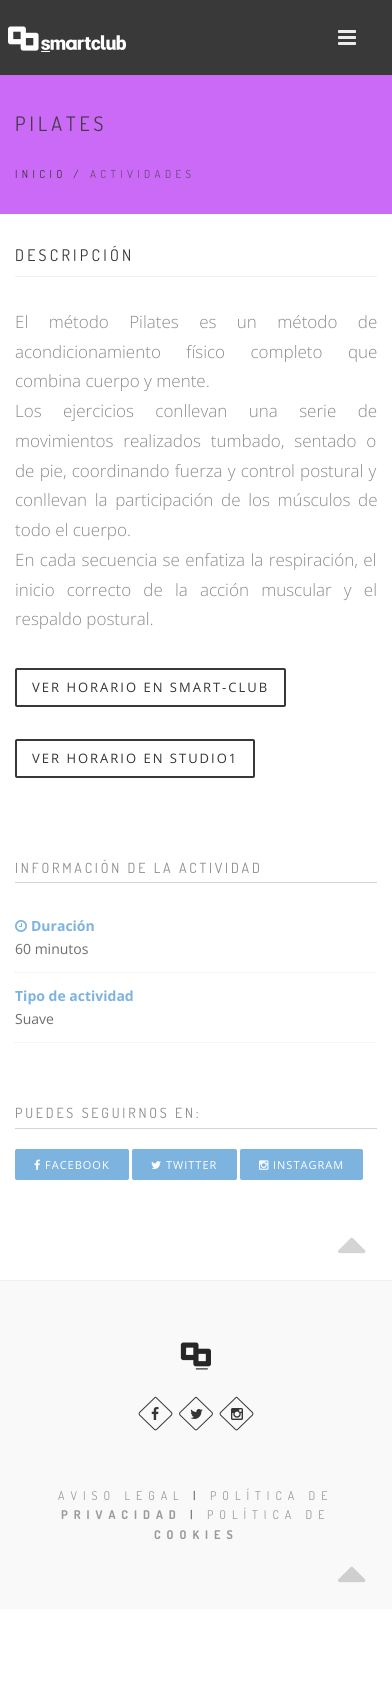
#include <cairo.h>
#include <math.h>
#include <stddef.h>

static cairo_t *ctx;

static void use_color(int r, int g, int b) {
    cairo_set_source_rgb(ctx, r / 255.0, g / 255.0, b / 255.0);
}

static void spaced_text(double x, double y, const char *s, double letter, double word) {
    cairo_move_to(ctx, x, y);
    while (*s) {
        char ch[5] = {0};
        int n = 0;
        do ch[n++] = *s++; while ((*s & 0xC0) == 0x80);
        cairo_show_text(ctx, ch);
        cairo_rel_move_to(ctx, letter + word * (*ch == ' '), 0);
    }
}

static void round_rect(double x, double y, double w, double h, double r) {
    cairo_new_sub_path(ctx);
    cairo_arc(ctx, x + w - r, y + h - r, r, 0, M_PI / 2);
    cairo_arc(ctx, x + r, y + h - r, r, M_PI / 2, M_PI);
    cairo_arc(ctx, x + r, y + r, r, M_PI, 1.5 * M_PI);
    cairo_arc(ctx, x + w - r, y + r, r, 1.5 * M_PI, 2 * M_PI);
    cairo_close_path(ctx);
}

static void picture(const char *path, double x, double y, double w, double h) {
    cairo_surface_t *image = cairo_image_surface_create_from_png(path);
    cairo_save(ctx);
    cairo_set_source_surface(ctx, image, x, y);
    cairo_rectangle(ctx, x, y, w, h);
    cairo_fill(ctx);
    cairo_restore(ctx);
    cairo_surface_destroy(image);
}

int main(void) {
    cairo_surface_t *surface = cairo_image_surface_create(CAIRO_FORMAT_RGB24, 392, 1684);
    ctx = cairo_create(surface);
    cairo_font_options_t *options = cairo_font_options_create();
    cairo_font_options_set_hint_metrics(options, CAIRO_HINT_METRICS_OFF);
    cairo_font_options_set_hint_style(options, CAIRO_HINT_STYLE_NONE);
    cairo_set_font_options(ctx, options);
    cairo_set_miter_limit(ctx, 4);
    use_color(255, 255, 255);
    cairo_paint(ctx);
    use_color(57, 57, 57);
    cairo_rectangle(ctx, 0, 0, 392, 75);
    cairo_fill(ctx);
    picture("img1.png", 8, 26, 118, 26);
    picture("img2.png", 338, 30, 18, 15);
    use_color(202, 106, 246);
    cairo_rectangle(ctx, 0, 75, 392, 139);
    cairo_fill(ctx);
    cairo_select_font_face(ctx, "Dosis", CAIRO_FONT_SLANT_NORMAL, CAIRO_FONT_WEIGHT_NORMAL);
    cairo_set_font_size(ctx, 20);
    use_color(68, 58, 72);
    spaced_text(15, 131, "PILATES", 4, 0);
    cairo_set_font_size(ctx, 11);
    use_color(53, 53, 53);
    spaced_text(15, 178, "INICIO /", 4.4, 0);
    use_color(105, 71, 120);
    spaced_text(90, 178, "ACTIVIDADES", 4.4, 0);
    cairo_set_font_size(ctx, 16);
    use_color(53, 53, 53);
    spaced_text(15, 261, "DESCRIPCIÓN", 3.25, 0);
    use_color(240, 240, 240);
    cairo_rectangle(ctx, 15, 276, 362, 1);
    cairo_fill(ctx);
    cairo_select_font_face(ctx, "Open Sans Light", CAIRO_FONT_SLANT_NORMAL, CAIRO_FONT_WEIGHT_NORMAL);
    cairo_set_font_size(ctx, 17);
    use_color(139, 139, 139);
    spaced_text(15, 328, "El método Pilates es un método de", 0, 16);
    spaced_text(15, 358, "acondicionamiento físico completo que", 0, 21);
    cairo_move_to(ctx, 15, 387);
    cairo_show_text(ctx, "combina cuerpo y mente.");
    spaced_text(15, 417, "Los ejercicios conllevan una serie de", 0, 17);
    spaced_text(15, 447, "movimientos realizados tumbado, sentado o", 0, 5.5);
    spaced_text(15, 477, "de pie, coordinando fuerza y control postural y", 0, 0.75);
    spaced_text(15, 506, "conllevan la participación de los músculos de", 0, 3.25);
    cairo_move_to(ctx, 15, 536);
    cairo_show_text(ctx, "todo el cuerpo.");
    spaced_text(15, 566, "En cada secuencia se enfatiza la respiración, el", 0, 1);
    spaced_text(15, 596, "inicio correcto de la acción muscular y el", 0, 7.75);
    cairo_move_to(ctx, 15, 625);
    cairo_show_text(ctx, "respaldo postural.");
    round_rect(16, 669, 269, 37, 1);
    use_color(56, 56, 56);
    cairo_stroke(ctx);
    cairo_select_font_face(ctx, "Open Sans", CAIRO_FONT_SLANT_NORMAL, CAIRO_FONT_WEIGHT_NORMAL);
    cairo_set_font_size(ctx, 13);
    use_color(53, 53, 53);
    spaced_text(32, 692, "VER HORARIO EN SMART-CLUB", 2, 0);
    round_rect(16, 740, 238, 37, 1);
    use_color(56, 56, 56);
    cairo_stroke(ctx);
    use_color(53, 53, 53);
    spaced_text(32, 763, "VER HORARIO EN STUDIO1", 2, 0);
    use_color(212, 212, 212);
    cairo_rectangle(ctx, 15, 882, 362, 1);
    cairo_fill(ctx);
    cairo_select_font_face(ctx, "Dosis", CAIRO_FONT_SLANT_NORMAL, CAIRO_FONT_WEIGHT_NORMAL);
    cairo_set_font_size(ctx, 14);
    use_color(139, 139, 139);
    spaced_text(15, 873, "INFORMACIÓN DE LA ACTIVIDAD", 2.8, 0);
    cairo_new_path(ctx);
    cairo_move_to(ctx, 15, 972.5);
    cairo_line_to(ctx, 377, 972.5);
    use_color(237, 237, 237);
    cairo_set_line_width(ctx, 1);
    cairo_set_dash(ctx, (double[]){1, 1}, 2, 0);
    cairo_stroke(ctx);
    picture("img3.png", 15, 920, 12, 12);
    cairo_select_font_face(ctx, "Open Sans", CAIRO_FONT_SLANT_NORMAL, CAIRO_FONT_WEIGHT_BOLD);
    use_color(125, 180, 223);
    cairo_move_to(ctx, 31, 931);
    cairo_show_text(ctx, "Duración");
    cairo_select_font_face(ctx, "Open Sans", CAIRO_FONT_SLANT_NORMAL, CAIRO_FONT_WEIGHT_NORMAL);
    use_color(110, 110, 110);
    cairo_move_to(ctx, 15, 954);
    cairo_show_text(ctx, "60 minutos");
    cairo_new_path(ctx);
    cairo_move_to(ctx, 15, 1042.5);
    cairo_line_to(ctx, 377, 1042.5);
    use_color(237, 237, 237);
    cairo_stroke(ctx);
    cairo_select_font_face(ctx, "Open Sans", CAIRO_FONT_SLANT_NORMAL, CAIRO_FONT_WEIGHT_BOLD);
    use_color(125, 180, 223);
    cairo_move_to(ctx, 15, 1001);
    cairo_show_text(ctx, "Tipo de actividad");
    cairo_select_font_face(ctx, "Open Sans", CAIRO_FONT_SLANT_NORMAL, CAIRO_FONT_WEIGHT_NORMAL);
    use_color(110, 110, 110);
    cairo_move_to(ctx, 15, 1024);
    cairo_show_text(ctx, "Suave");
    use_color(212, 212, 212);
    cairo_rectangle(ctx, 15, 1128, 362, 1);
    cairo_fill(ctx);
    cairo_select_font_face(ctx, "Dosis", CAIRO_FONT_SLANT_NORMAL, CAIRO_FONT_WEIGHT_NORMAL);
    use_color(139, 139, 139);
    spaced_text(15, 1118, "PUEDES SEGUIRNOS EN:", 2.8, 0);
    use_color(125, 180, 223);
    round_rect(15, 1149, 114, 31, 2);
    cairo_fill(ctx);
    picture("img4.png", 34, 1159, 6, 11);
    cairo_select_font_face(ctx, "Open Sans", CAIRO_FONT_SLANT_NORMAL, CAIRO_FONT_WEIGHT_NORMAL);
    cairo_set_font_size(ctx, 11);
    use_color(255, 255, 255);
    spaced_text(45, 1169, "FACEBOOK", 1, 0);
    use_color(125, 180, 223);
    round_rect(132, 1149, 105, 31, 2);
    cairo_fill(ctx);
    picture("img5.png", 151, 1161, 10, 8);
    use_color(255, 255, 255);
    spaced_text(166, 1169, "TWITTER", 1, 0);
    use_color(125, 180, 223);
    round_rect(240, 1149, 123, 31, 2);
    cairo_fill(ctx);
    picture("img6.png", 259, 1160, 10, 10);
    use_color(255, 255, 255);
    spaced_text(273, 1169, "INSTAGRAM", 1, 0);
    picture("img7.png", 338, 1237, 28, 17);
    use_color(240, 240, 240);
    cairo_rectangle(ctx, 0, 1280, 392, 1);
    cairo_fill(ctx);
    use_color(249, 249, 249);
    cairo_rectangle(ctx, 0, 1281, 392, 328);
    cairo_fill(ctx);
    picture("img8.png", 180, 1342, 31, 28);
    cairo_new_path(ctx);
    cairo_move_to(ctx, 156.5, 1398);
    cairo_line_to(ctx, 171.5, 1412.5);
    cairo_curve_to(ctx, 172, 1413, 172, 1414, 171.5, 1415);
    cairo_line_to(ctx, 156.5, 1429.5);
    cairo_curve_to(ctx, 156, 1430, 155, 1430, 154.5, 1429.5);
    cairo_line_to(ctx, 139.5, 1415);
    cairo_curve_to(ctx, 139, 1414, 139, 1413, 139.5, 1412.5);
    cairo_line_to(ctx, 154.5, 1398);
    cairo_curve_to(ctx, 155, 1397, 156, 1397, 156.5, 1398);
    cairo_close_path(ctx);
    use_color(53, 53, 53);
    cairo_set_dash(ctx, NULL, 0, 0);
    cairo_stroke(ctx);
    picture("img9.png", 151, 1407, 8, 13);
    cairo_new_path(ctx);
    cairo_move_to(ctx, 197, 1398);
    cairo_line_to(ctx, 212, 1412.5);
    cairo_curve_to(ctx, 212.5, 1413, 212.5, 1414, 212, 1415);
    cairo_line_to(ctx, 197, 1429.5);
    cairo_curve_to(ctx, 196.5, 1430, 195.5, 1430, 195, 1429.5);
    cairo_line_to(ctx, 180, 1415);
    cairo_curve_to(ctx, 179.5, 1414, 179.5, 1413, 180, 1412.5);
    cairo_line_to(ctx, 195, 1398);
    cairo_curve_to(ctx, 195.5, 1397, 196.5, 1397, 197, 1398);
    cairo_close_path(ctx);
    cairo_stroke(ctx);
    picture("img10.png", 190, 1409, 13, 10);
    cairo_new_path(ctx);
    cairo_move_to(ctx, 237.5, 1398);
    cairo_line_to(ctx, 252.5, 1412.5);
    cairo_curve_to(ctx, 253, 1413, 253, 1414, 252.5, 1415);
    cairo_line_to(ctx, 237.5, 1429.5);
    cairo_curve_to(ctx, 237, 1430, 236, 1430, 235.5, 1429.5);
    cairo_line_to(ctx, 220.5, 1415);
    cairo_curve_to(ctx, 220, 1414, 220, 1413, 220.5, 1412.5);
    cairo_line_to(ctx, 235.5, 1398);
    cairo_curve_to(ctx, 236, 1397, 237, 1397, 237.5, 1398);
    cairo_close_path(ctx);
    cairo_stroke(ctx);
    picture("img11.png", 231, 1408, 12, 12);
    cairo_select_font_face(ctx, "Dosis", CAIRO_FONT_SLANT_NORMAL, CAIRO_FONT_WEIGHT_NORMAL);
    cairo_set_font_size(ctx, 12);
    use_color(154, 154, 154);
    spaced_text(58, 1500, "AVISO LEGAL", 6, 0);
    use_color(53, 53, 53);
    spaced_text(193, 1500, "|", 6, 0);
    use_color(154, 154, 154);
    spaced_text(210, 1500, "POLÍTICA DE", 6, 0);
    cairo_select_font_face(ctx, "Dosis", CAIRO_FONT_SLANT_NORMAL, CAIRO_FONT_WEIGHT_BOLD);
    spaced_text(61, 1519, "PRIVACIDAD", 6, 0);
    cairo_select_font_face(ctx, "Dosis", CAIRO_FONT_SLANT_NORMAL, CAIRO_FONT_WEIGHT_NORMAL);
    use_color(53, 53, 53);
    spaced_text(190, 1519, "|", 6, 0);
    use_color(154, 154, 154);
    spaced_text(207, 1519, "POLÍTICA DE", 6, 0);
    cairo_select_font_face(ctx, "Dosis", CAIRO_FONT_SLANT_NORMAL, CAIRO_FONT_WEIGHT_BOLD);
    spaced_text(154, 1539, "COOKIES", 6, 0);
    picture("img12.png", 338, 1566, 28, 17);
    cairo_surface_write_to_png(surface, "result.png");
    cairo_font_options_destroy(options);
    cairo_destroy(ctx);
    cairo_surface_destroy(surface);
    return 0;
}
